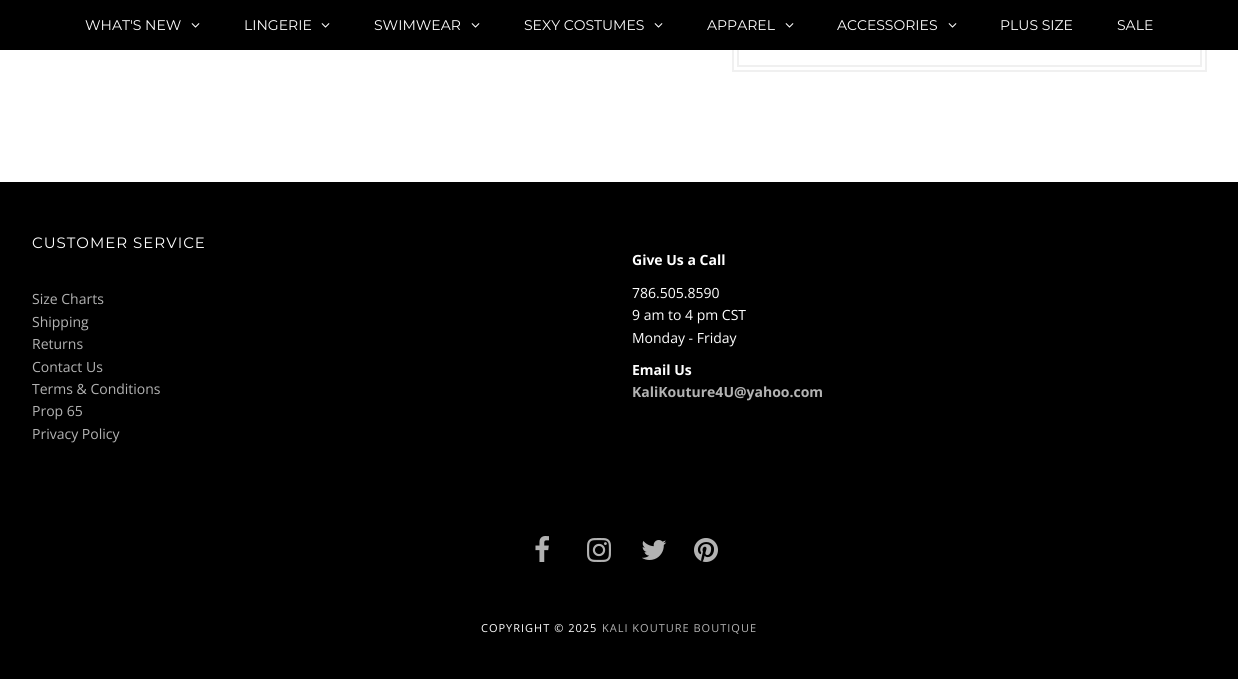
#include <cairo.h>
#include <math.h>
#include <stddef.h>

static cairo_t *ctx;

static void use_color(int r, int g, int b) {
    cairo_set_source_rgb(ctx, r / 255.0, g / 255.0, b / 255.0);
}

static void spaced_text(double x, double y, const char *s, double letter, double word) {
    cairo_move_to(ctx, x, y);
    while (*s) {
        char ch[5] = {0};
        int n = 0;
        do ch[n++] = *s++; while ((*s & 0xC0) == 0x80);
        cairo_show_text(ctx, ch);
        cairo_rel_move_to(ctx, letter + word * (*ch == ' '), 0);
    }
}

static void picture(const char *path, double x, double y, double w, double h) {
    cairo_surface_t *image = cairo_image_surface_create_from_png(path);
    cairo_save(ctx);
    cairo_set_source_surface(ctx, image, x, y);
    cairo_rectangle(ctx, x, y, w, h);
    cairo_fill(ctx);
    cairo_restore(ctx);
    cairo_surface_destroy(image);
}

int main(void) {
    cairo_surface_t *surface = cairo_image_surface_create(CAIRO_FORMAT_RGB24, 1238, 679);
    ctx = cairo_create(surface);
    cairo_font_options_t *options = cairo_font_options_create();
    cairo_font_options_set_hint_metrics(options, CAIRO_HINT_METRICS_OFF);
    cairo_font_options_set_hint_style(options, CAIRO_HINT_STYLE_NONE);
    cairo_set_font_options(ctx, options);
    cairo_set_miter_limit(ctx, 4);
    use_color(255, 255, 255);
    cairo_paint(ctx);
    cairo_rectangle(ctx, 733, -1, 473, 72);
    use_color(240, 240, 240);
    cairo_stroke(ctx);
    cairo_rectangle(ctx, 738, -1, 463, 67);
    cairo_stroke(ctx);
    use_color(0, 0, 0);
    cairo_rectangle(ctx, 0, 0, 1238, 50);
    cairo_fill(ctx);
    cairo_select_font_face(ctx, "Montserrat", CAIRO_FONT_SLANT_NORMAL, CAIRO_FONT_WEIGHT_NORMAL);
    cairo_set_font_size(ctx, 14);
    use_color(255, 255, 255);
    cairo_move_to(ctx, 85, 30);
    cairo_show_text(ctx, "WHAT'S NEW");
    picture("img1.png", 191, 23, 9, 5);
    cairo_move_to(ctx, 244, 30);
    cairo_show_text(ctx, "LINGERIE");
    picture("img1.png", 321, 23, 9, 5);
    cairo_move_to(ctx, 374, 30);
    cairo_show_text(ctx, "SWIMWEAR");
    picture("img1.png", 471, 23, 9, 5);
    cairo_move_to(ctx, 524, 30);
    cairo_show_text(ctx, "SEXY COSTUMES");
    picture("img1.png", 654, 23, 9, 5);
    cairo_move_to(ctx, 707, 30);
    cairo_show_text(ctx, "APPAREL");
    picture("img1.png", 785, 23, 9, 5);
    cairo_move_to(ctx, 837, 30);
    cairo_show_text(ctx, "ACCESSORIES");
    picture("img1.png", 948, 23, 9, 5);
    cairo_move_to(ctx, 1000, 30);
    cairo_show_text(ctx, "PLUS SIZE");
    cairo_move_to(ctx, 1117, 30);
    cairo_show_text(ctx, "SALE");
    use_color(0, 0, 0);
    cairo_rectangle(ctx, 0, 182, 1238, 497);
    cairo_fill(ctx);
    cairo_set_font_size(ctx, 15);
    use_color(255, 255, 255);
    spaced_text(32, 248, "CUSTOMER SERVICE", 1, 0);
    cairo_select_font_face(ctx, "Open Sans", CAIRO_FONT_SLANT_NORMAL, CAIRO_FONT_WEIGHT_NORMAL);
    cairo_set_font_size(ctx, 14);
    use_color(179, 179, 179);
    cairo_move_to(ctx, 32, 304);
    cairo_show_text(ctx, "Size Charts");
    cairo_move_to(ctx, 32, 327);
    cairo_show_text(ctx, "Shipping");
    cairo_move_to(ctx, 32, 349);
    cairo_show_text(ctx, "Returns");
    cairo_move_to(ctx, 32, 372);
    cairo_show_text(ctx, "Contact Us");
    cairo_move_to(ctx, 32, 394);
    cairo_show_text(ctx, "Terms & Conditions");
    cairo_move_to(ctx, 32, 416);
    cairo_show_text(ctx, "Prop 65");
    cairo_move_to(ctx, 32, 439);
    cairo_show_text(ctx, "Privacy Policy");
    cairo_select_font_face(ctx, "Open Sans", CAIRO_FONT_SLANT_NORMAL, CAIRO_FONT_WEIGHT_BOLD);
    use_color(255, 255, 255);
    cairo_move_to(ctx, 632, 265);
    cairo_show_text(ctx, "Give Us a Call");
    cairo_select_font_face(ctx, "Open Sans", CAIRO_FONT_SLANT_NORMAL, CAIRO_FONT_WEIGHT_NORMAL);
    cairo_move_to(ctx, 632, 298);
    cairo_show_text(ctx, "786.505.8590");
    cairo_move_to(ctx, 632, 320);
    cairo_show_text(ctx, "9 am to 4 pm CST");
    cairo_move_to(ctx, 632, 343);
    cairo_show_text(ctx, "Monday - Friday");
    cairo_select_font_face(ctx, "Open Sans", CAIRO_FONT_SLANT_NORMAL, CAIRO_FONT_WEIGHT_BOLD);
    cairo_move_to(ctx, 632, 375);
    cairo_show_text(ctx, "Email Us");
    use_color(179, 179, 179);
    cairo_move_to(ctx, 632, 397);
    cairo_show_text(ctx, "KaliKouture4U@yahoo.com");
    picture("img2.png", 535, 536, 14, 26);
    picture("img3.png", 587, 538, 24, 24);
    picture("img4.png", 642, 540, 25, 20);
    picture("img5.png", 694, 538, 24, 24);
    cairo_select_font_face(ctx, "Open Sans", CAIRO_FONT_SLANT_NORMAL, CAIRO_FONT_WEIGHT_NORMAL);
    cairo_set_font_size(ctx, 11);
    use_color(255, 255, 255);
    spaced_text(481, 632, "COPYRIGHT © 2025", 1, 0);
    use_color(179, 179, 179);
    spaced_text(602, 632, "KALI KOUTURE BOUTIQUE", 1, 0);
    cairo_surface_write_to_png(surface, "result.png");
    cairo_font_options_destroy(options);
    cairo_destroy(ctx);
    cairo_surface_destroy(surface);
    return 0;
}
